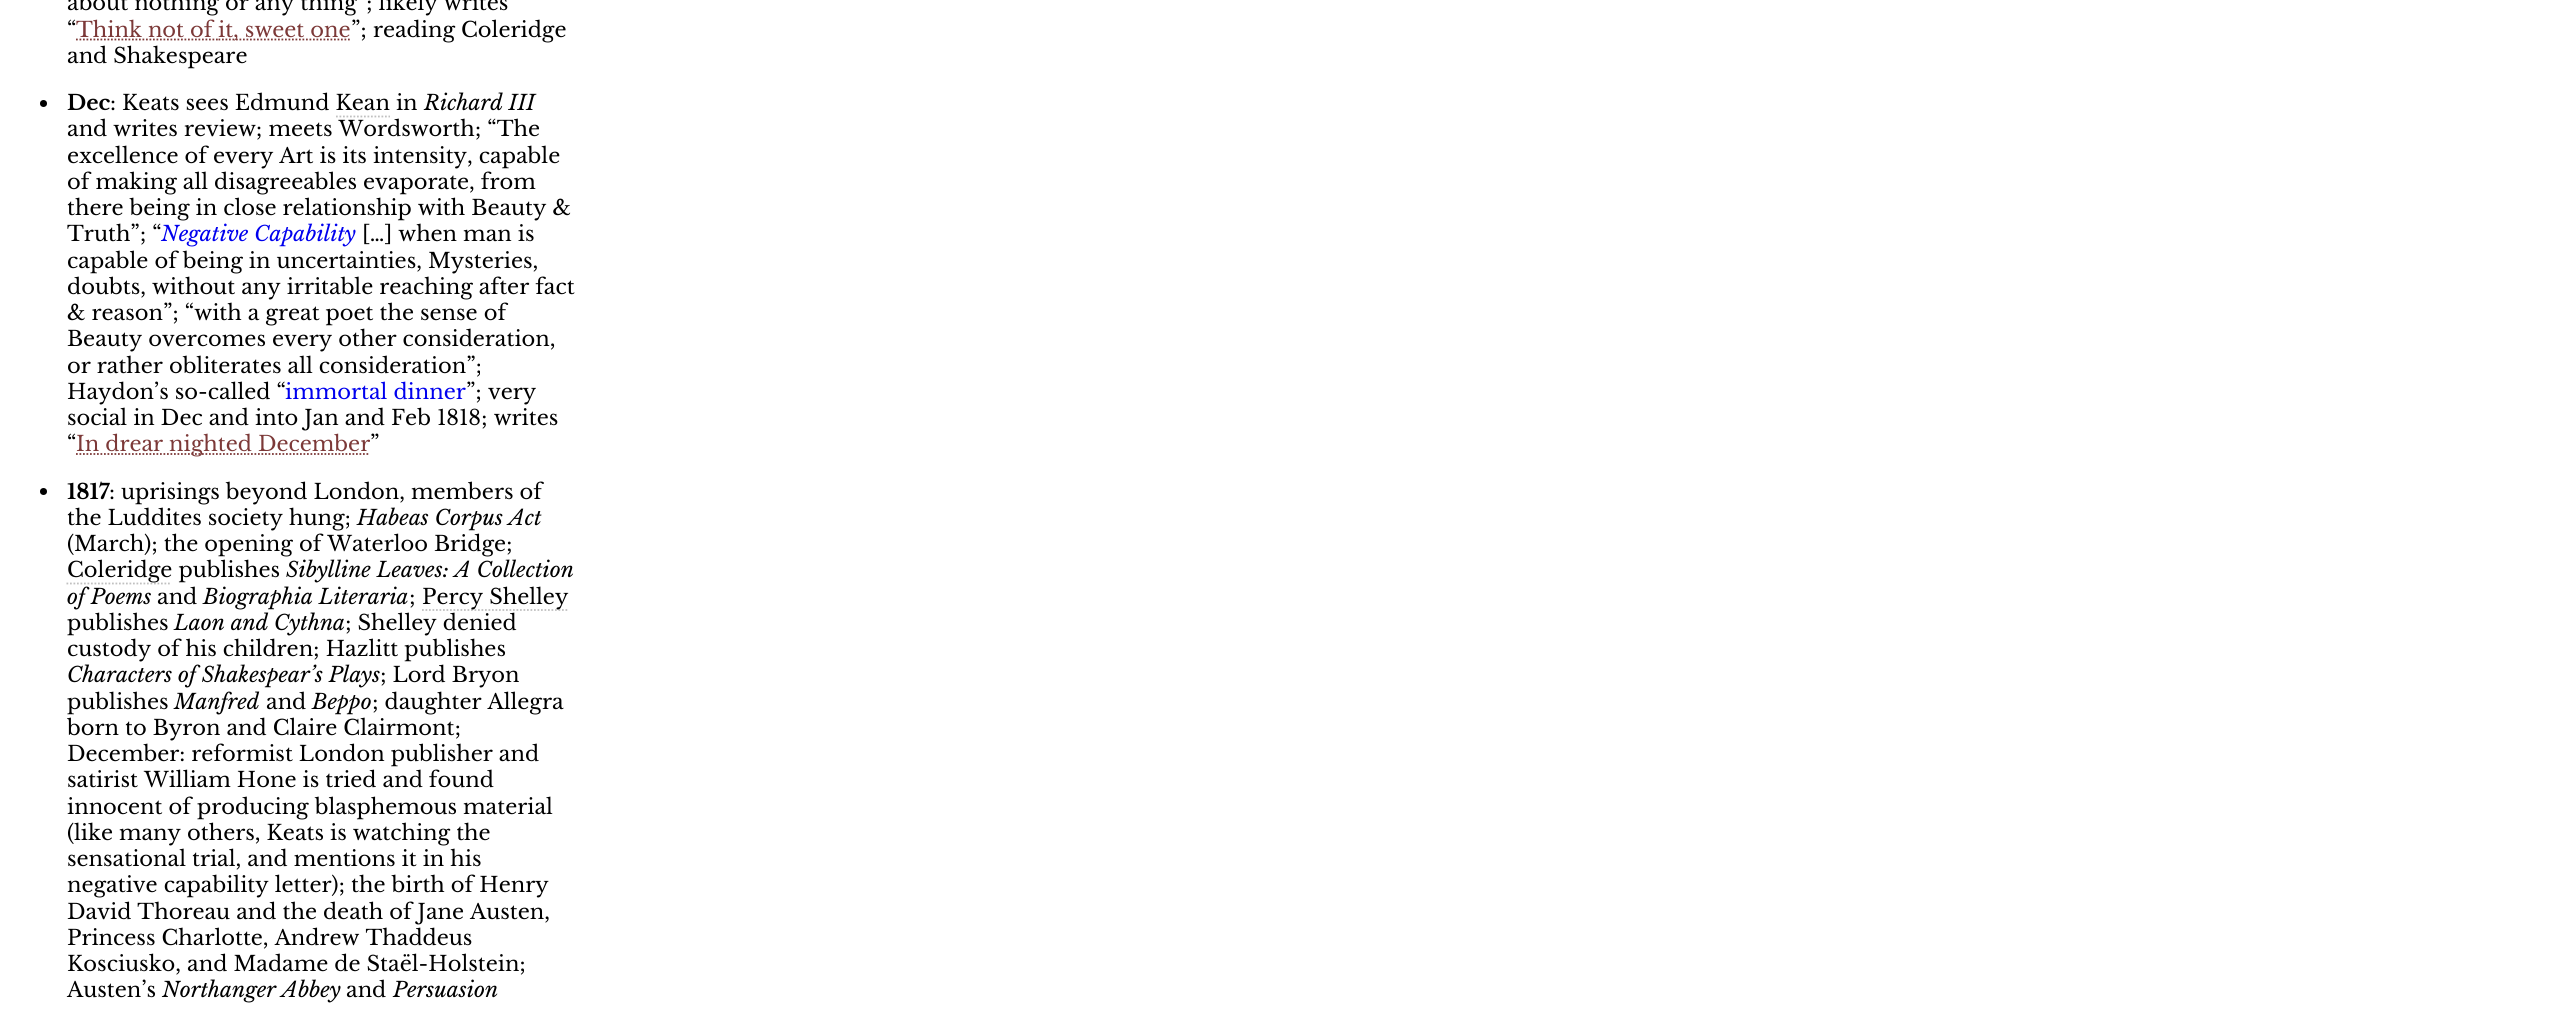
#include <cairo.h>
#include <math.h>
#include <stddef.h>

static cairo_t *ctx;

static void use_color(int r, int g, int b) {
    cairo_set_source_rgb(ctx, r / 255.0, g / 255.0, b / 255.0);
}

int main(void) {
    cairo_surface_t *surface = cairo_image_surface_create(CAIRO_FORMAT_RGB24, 2576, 1017);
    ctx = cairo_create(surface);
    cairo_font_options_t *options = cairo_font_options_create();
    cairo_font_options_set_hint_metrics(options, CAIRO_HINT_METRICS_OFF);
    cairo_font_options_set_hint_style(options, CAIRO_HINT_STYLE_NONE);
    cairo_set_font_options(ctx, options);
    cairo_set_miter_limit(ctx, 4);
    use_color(255, 255, 255);
    cairo_paint(ctx);
    cairo_select_font_face(ctx, "Libre Baskerville", CAIRO_FONT_SLANT_NORMAL, CAIRO_FONT_WEIGHT_NORMAL);
    cairo_set_font_size(ctx, 21);
    use_color(0, 0, 0);
    cairo_move_to(ctx, 67, 10);
    cairo_show_text(ctx, "about nothing or any thing");
    cairo_move_to(ctx, 366, 10);
    cairo_show_text(ctx, "; likely writes");
    cairo_move_to(ctx, 67, 37);
    cairo_show_text(ctx, "“");
    use_color(124, 57, 56);
    cairo_move_to(ctx, 76, 37);
    cairo_show_text(ctx, "Think not of");
    cairo_new_path(ctx);
    cairo_move_to(ctx, 218.5, 39.5);
    cairo_line_to(ctx, 351, 39.5);
    cairo_set_line_width(ctx, 1.8);
    cairo_set_dash(ctx, (double[]){1.75, 1.75}, 2, 0);
    cairo_stroke(ctx);
    cairo_move_to(ctx, 218, 37);
    cairo_show_text(ctx, "it, sweet one");
    cairo_new_path(ctx);
    cairo_move_to(ctx, 76, 39.5);
    cairo_line_to(ctx, 218.5, 39.5);
    cairo_stroke(ctx);
    use_color(0, 0, 0);
    cairo_move_to(ctx, 351, 37);
    cairo_show_text(ctx, "”; reading Coleridge");
    cairo_move_to(ctx, 67, 63);
    cairo_show_text(ctx, "and Shakespeare");
    cairo_new_path(ctx);
    cairo_arc(ctx, 43.5, 103.5, 3.5, 0, 2 * M_PI);
    cairo_fill(ctx);
    cairo_select_font_face(ctx, "Libre Baskerville", CAIRO_FONT_SLANT_NORMAL, CAIRO_FONT_WEIGHT_BOLD);
    cairo_move_to(ctx, 67, 110);
    cairo_show_text(ctx, "Dec");
    cairo_select_font_face(ctx, "Libre Baskerville", CAIRO_FONT_SLANT_NORMAL, CAIRO_FONT_WEIGHT_NORMAL);
    cairo_move_to(ctx, 110, 110);
    cairo_show_text(ctx, ": Keats sees Edmund Kean in");
    cairo_select_font_face(ctx, "Libre Baskerville", CAIRO_FONT_SLANT_ITALIC, CAIRO_FONT_WEIGHT_NORMAL);
    cairo_move_to(ctx, 424, 110);
    cairo_show_text(ctx, "Richard III");
    cairo_new_path(ctx);
    cairo_move_to(ctx, 336, 116.5);
    cairo_line_to(ctx, 390, 116.5);
    use_color(192, 192, 192);
    cairo_stroke(ctx);
    cairo_select_font_face(ctx, "Libre Baskerville", CAIRO_FONT_SLANT_NORMAL, CAIRO_FONT_WEIGHT_NORMAL);
    use_color(0, 0, 0);
    cairo_move_to(ctx, 67, 136);
    cairo_show_text(ctx, "and writes review; meets Wordsworth; “The");
    cairo_move_to(ctx, 67, 163);
    cairo_show_text(ctx, "excellence of every Art is its intensity, capable");
    cairo_move_to(ctx, 67, 189);
    cairo_show_text(ctx, "of making all disagreeables evaporate, from");
    cairo_move_to(ctx, 67, 215);
    cairo_show_text(ctx, "there being in close relationship with Beauty &");
    cairo_move_to(ctx, 67, 241);
    cairo_show_text(ctx, "Truth”; “");
    cairo_select_font_face(ctx, "Libre Baskerville", CAIRO_FONT_SLANT_ITALIC, CAIRO_FONT_WEIGHT_NORMAL);
    use_color(0, 0, 238);
    cairo_move_to(ctx, 161, 241);
    cairo_show_text(ctx, "Negative Capability");
    cairo_select_font_face(ctx, "Libre Baskerville", CAIRO_FONT_SLANT_NORMAL, CAIRO_FONT_WEIGHT_NORMAL);
    use_color(0, 0, 0);
    cairo_move_to(ctx, 362, 241);
    cairo_show_text(ctx, "[…] when man is");
    cairo_move_to(ctx, 67, 268);
    cairo_show_text(ctx, "capable of being in uncertainties, Mysteries,");
    cairo_move_to(ctx, 67, 294);
    cairo_show_text(ctx, "doubts, without any irritable reaching after fact");
    cairo_move_to(ctx, 67, 320);
    cairo_show_text(ctx, "& reason”; “with a great poet the sense of");
    cairo_move_to(ctx, 67, 346);
    cairo_show_text(ctx, "Beauty overcomes every other consideration,");
    cairo_move_to(ctx, 67, 373);
    cairo_show_text(ctx, "or rather obliterates all consideration”;");
    cairo_move_to(ctx, 67, 399);
    cairo_show_text(ctx, "Haydon’s so-called “");
    use_color(0, 0, 238);
    cairo_move_to(ctx, 285, 399);
    cairo_show_text(ctx, "immortal dinner");
    use_color(0, 0, 0);
    cairo_move_to(ctx, 466, 399);
    cairo_show_text(ctx, "”; very");
    cairo_move_to(ctx, 67, 425);
    cairo_show_text(ctx, "social in Dec and into Jan and Feb 1818; writes");
    cairo_move_to(ctx, 67, 451);
    cairo_show_text(ctx, "“");
    cairo_new_path(ctx);
    cairo_move_to(ctx, 76, 454);
    cairo_line_to(ctx, 258, 454);
    use_color(124, 57, 56);
    cairo_stroke(ctx);
    cairo_move_to(ctx, 76, 451);
    cairo_show_text(ctx, "In drear nighted December");
    cairo_new_path(ctx);
    cairo_move_to(ctx, 258, 454);
    cairo_line_to(ctx, 370, 454);
    cairo_stroke(ctx);
    use_color(0, 0, 0);
    cairo_move_to(ctx, 370, 451);
    cairo_show_text(ctx, "”");
    cairo_new_path(ctx);
    cairo_arc(ctx, 43.5, 491.5, 3.5, 0, 2 * M_PI);
    cairo_fill(ctx);
    cairo_select_font_face(ctx, "Libre Baskerville", CAIRO_FONT_SLANT_NORMAL, CAIRO_FONT_WEIGHT_BOLD);
    cairo_move_to(ctx, 67, 499);
    cairo_show_text(ctx, "1817");
    cairo_select_font_face(ctx, "Libre Baskerville", CAIRO_FONT_SLANT_NORMAL, CAIRO_FONT_WEIGHT_NORMAL);
    cairo_move_to(ctx, 109, 499);
    cairo_show_text(ctx, ": uprisings beyond London, members of");
    cairo_move_to(ctx, 67, 525);
    cairo_show_text(ctx, "the Luddites society hung;");
    cairo_select_font_face(ctx, "Libre Baskerville", CAIRO_FONT_SLANT_ITALIC, CAIRO_FONT_WEIGHT_NORMAL);
    cairo_move_to(ctx, 357, 525);
    cairo_show_text(ctx, "Habeas Corpus Act");
    cairo_select_font_face(ctx, "Libre Baskerville", CAIRO_FONT_SLANT_NORMAL, CAIRO_FONT_WEIGHT_NORMAL);
    cairo_move_to(ctx, 67, 551);
    cairo_show_text(ctx, "(March); the opening of Waterloo Bridge;");
    cairo_new_path(ctx);
    cairo_move_to(ctx, 66.5, 583.5);
    cairo_line_to(ctx, 171.5, 583.5);
    use_color(192, 192, 192);
    cairo_stroke(ctx);
    use_color(0, 0, 0);
    cairo_move_to(ctx, 67, 577);
    cairo_show_text(ctx, "Coleridge publishes");
    cairo_select_font_face(ctx, "Libre Baskerville", CAIRO_FONT_SLANT_ITALIC, CAIRO_FONT_WEIGHT_NORMAL);
    cairo_move_to(ctx, 286, 577);
    cairo_show_text(ctx, "Sibylline Leaves: A Collection");
    cairo_move_to(ctx, 67, 604);
    cairo_show_text(ctx, "of Poems");
    cairo_select_font_face(ctx, "Libre Baskerville", CAIRO_FONT_SLANT_NORMAL, CAIRO_FONT_WEIGHT_NORMAL);
    cairo_move_to(ctx, 157, 604);
    cairo_show_text(ctx, "and");
    cairo_select_font_face(ctx, "Libre Baskerville", CAIRO_FONT_SLANT_ITALIC, CAIRO_FONT_WEIGHT_NORMAL);
    cairo_move_to(ctx, 203, 604);
    cairo_show_text(ctx, "Biographia Literaria");
    cairo_select_font_face(ctx, "Libre Baskerville", CAIRO_FONT_SLANT_NORMAL, CAIRO_FONT_WEIGHT_NORMAL);
    cairo_move_to(ctx, 409, 604);
    cairo_show_text(ctx, ";");
    cairo_new_path(ctx);
    cairo_move_to(ctx, 422, 610);
    cairo_line_to(ctx, 569, 610);
    use_color(192, 192, 192);
    cairo_stroke(ctx);
    use_color(0, 0, 0);
    cairo_move_to(ctx, 422, 604);
    cairo_show_text(ctx, "Percy Shelley");
    cairo_move_to(ctx, 67, 630);
    cairo_show_text(ctx, "publishes");
    cairo_select_font_face(ctx, "Libre Baskerville", CAIRO_FONT_SLANT_ITALIC, CAIRO_FONT_WEIGHT_NORMAL);
    cairo_move_to(ctx, 174, 630);
    cairo_show_text(ctx, "Laon and Cythna");
    cairo_select_font_face(ctx, "Libre Baskerville", CAIRO_FONT_SLANT_NORMAL, CAIRO_FONT_WEIGHT_NORMAL);
    cairo_move_to(ctx, 345, 630);
    cairo_show_text(ctx, "; Shelley denied");
    cairo_move_to(ctx, 67, 656);
    cairo_show_text(ctx, "custody of his children; Hazlitt publishes");
    cairo_select_font_face(ctx, "Libre Baskerville", CAIRO_FONT_SLANT_ITALIC, CAIRO_FONT_WEIGHT_NORMAL);
    cairo_move_to(ctx, 67, 682);
    cairo_show_text(ctx, "Characters of Shakespear’s Plays");
    cairo_select_font_face(ctx, "Libre Baskerville", CAIRO_FONT_SLANT_NORMAL, CAIRO_FONT_WEIGHT_NORMAL);
    cairo_move_to(ctx, 380, 682);
    cairo_show_text(ctx, "; Lord Bryon");
    cairo_move_to(ctx, 67, 709);
    cairo_show_text(ctx, "publishes");
    cairo_select_font_face(ctx, "Libre Baskerville", CAIRO_FONT_SLANT_ITALIC, CAIRO_FONT_WEIGHT_NORMAL);
    cairo_move_to(ctx, 174, 709);
    cairo_show_text(ctx, "Manfred");
    cairo_select_font_face(ctx, "Libre Baskerville", CAIRO_FONT_SLANT_NORMAL, CAIRO_FONT_WEIGHT_NORMAL);
    cairo_move_to(ctx, 266, 709);
    cairo_show_text(ctx, "and");
    cairo_select_font_face(ctx, "Libre Baskerville", CAIRO_FONT_SLANT_ITALIC, CAIRO_FONT_WEIGHT_NORMAL);
    cairo_move_to(ctx, 312, 709);
    cairo_show_text(ctx, "Beppo");
    cairo_select_font_face(ctx, "Libre Baskerville", CAIRO_FONT_SLANT_NORMAL, CAIRO_FONT_WEIGHT_NORMAL);
    cairo_move_to(ctx, 372, 709);
    cairo_show_text(ctx, "; daughter Allegra");
    cairo_move_to(ctx, 67, 735);
    cairo_show_text(ctx, "born to Byron and Claire Clairmont;");
    cairo_move_to(ctx, 67, 761);
    cairo_show_text(ctx, "December: reformist London publisher and");
    cairo_move_to(ctx, 67, 787);
    cairo_show_text(ctx, "satirist William Hone is tried and found");
    cairo_move_to(ctx, 67, 814);
    cairo_show_text(ctx, "innocent of producing blasphemous material");
    cairo_move_to(ctx, 67, 840);
    cairo_show_text(ctx, "(like many others, Keats is watching the");
    cairo_move_to(ctx, 67, 866);
    cairo_show_text(ctx, "sensational trial, and mentions it in his");
    cairo_move_to(ctx, 67, 892);
    cairo_show_text(ctx, "negative capability letter); the birth of Henry");
    cairo_move_to(ctx, 67, 919);
    cairo_show_text(ctx, "David Thoreau and the death of Jane Austen,");
    cairo_move_to(ctx, 67, 945);
    cairo_show_text(ctx, "Princess Charlotte, Andrew Thaddeus");
    cairo_move_to(ctx, 67, 971);
    cairo_show_text(ctx, "Kosciusko, and Madame de Staël-Holstein;");
    cairo_move_to(ctx, 67, 997);
    cairo_show_text(ctx, "Austen’s");
    cairo_select_font_face(ctx, "Libre Baskerville", CAIRO_FONT_SLANT_ITALIC, CAIRO_FONT_WEIGHT_NORMAL);
    cairo_move_to(ctx, 162, 997);
    cairo_show_text(ctx, "Northanger Abbey");
    cairo_select_font_face(ctx, "Libre Baskerville", CAIRO_FONT_SLANT_NORMAL, CAIRO_FONT_WEIGHT_NORMAL);
    cairo_move_to(ctx, 346, 997);
    cairo_show_text(ctx, "and");
    cairo_select_font_face(ctx, "Libre Baskerville", CAIRO_FONT_SLANT_ITALIC, CAIRO_FONT_WEIGHT_NORMAL);
    cairo_move_to(ctx, 393, 997);
    cairo_show_text(ctx, "Persuasion");
    cairo_surface_write_to_png(surface, "result.png");
    cairo_font_options_destroy(options);
    cairo_destroy(ctx);
    cairo_surface_destroy(surface);
    return 0;
}
